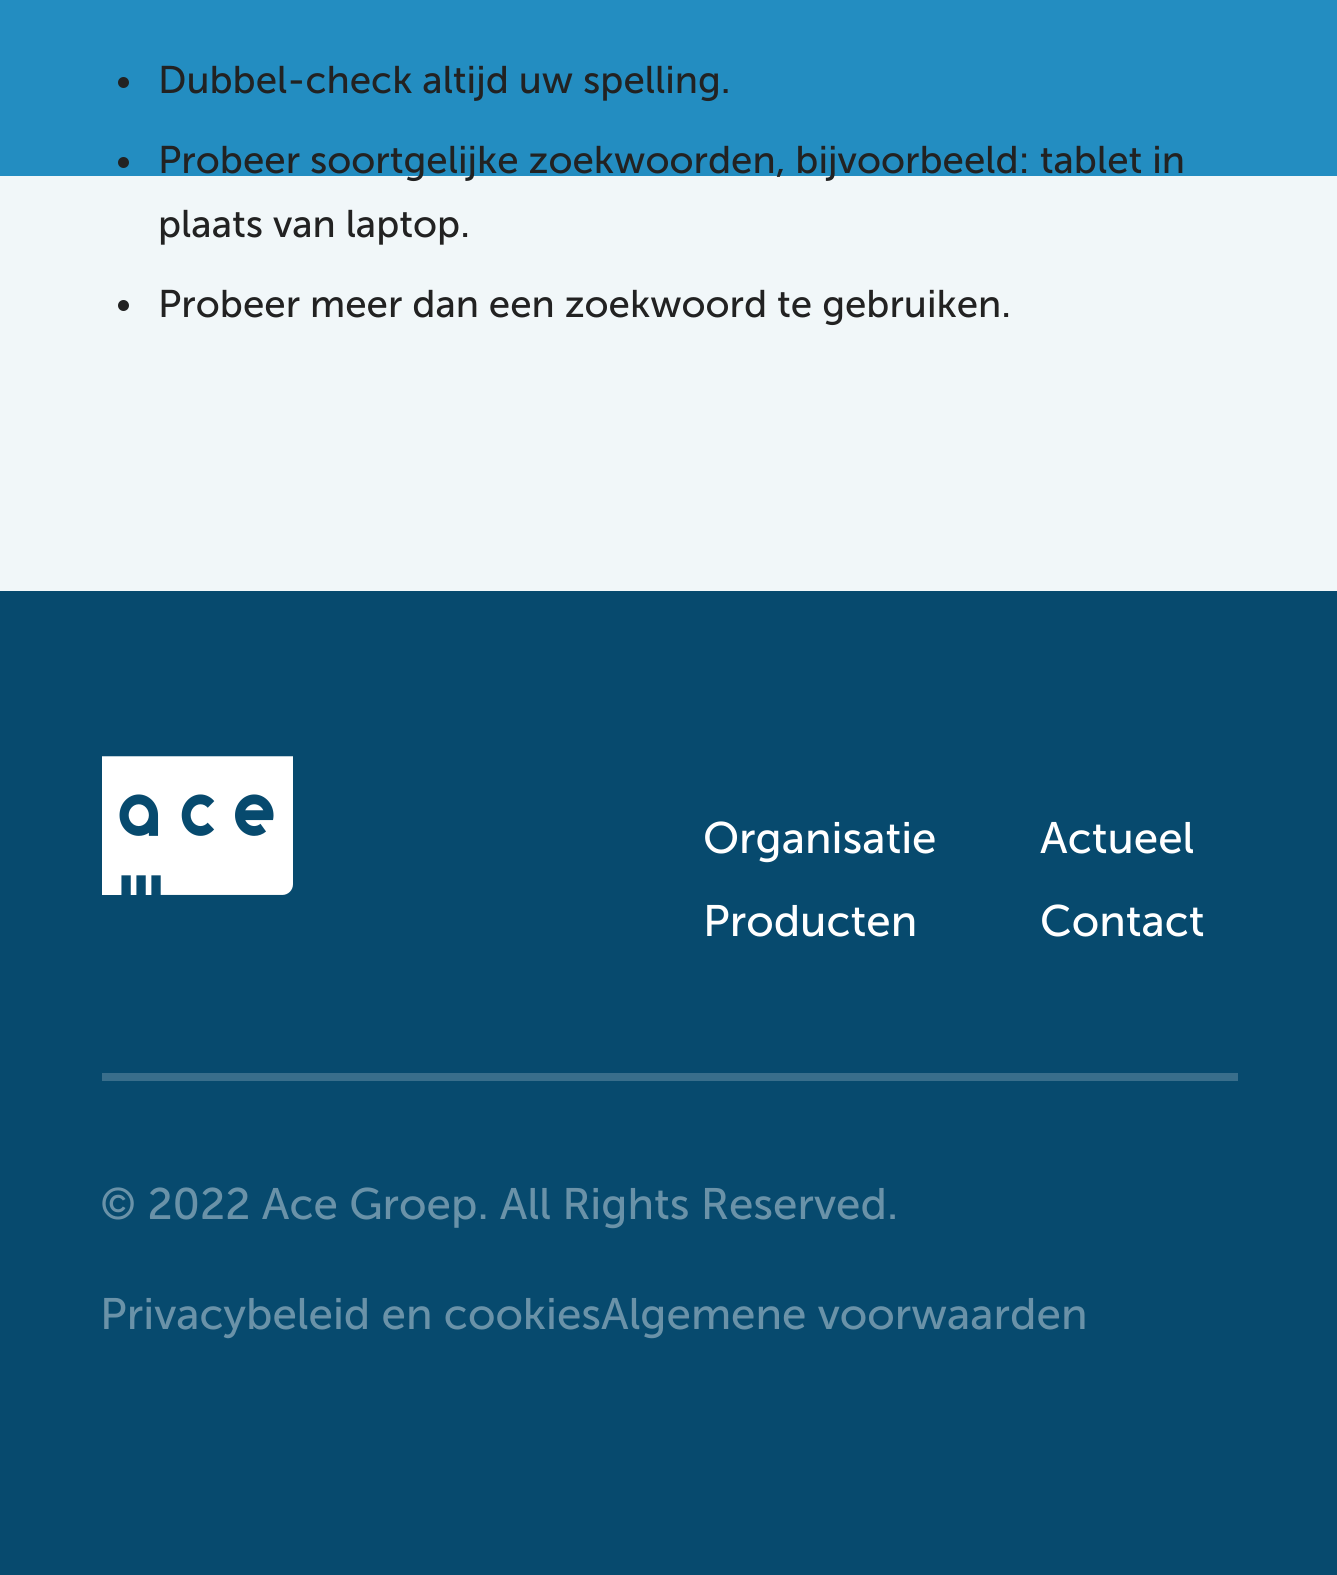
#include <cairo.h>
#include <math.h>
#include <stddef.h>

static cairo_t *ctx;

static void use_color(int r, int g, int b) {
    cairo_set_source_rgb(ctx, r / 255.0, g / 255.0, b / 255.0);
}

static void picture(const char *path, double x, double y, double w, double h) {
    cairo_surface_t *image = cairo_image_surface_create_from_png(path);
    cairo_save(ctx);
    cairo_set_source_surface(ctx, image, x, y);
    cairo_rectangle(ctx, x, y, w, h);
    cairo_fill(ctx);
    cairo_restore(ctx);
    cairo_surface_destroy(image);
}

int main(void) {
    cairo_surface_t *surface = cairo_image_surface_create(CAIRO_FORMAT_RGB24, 1337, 1575);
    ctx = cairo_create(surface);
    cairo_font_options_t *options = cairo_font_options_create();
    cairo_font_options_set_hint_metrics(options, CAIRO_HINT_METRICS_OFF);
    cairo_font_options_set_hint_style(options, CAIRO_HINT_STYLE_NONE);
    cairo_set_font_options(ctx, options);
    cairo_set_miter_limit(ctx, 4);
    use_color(241, 247, 249);
    cairo_paint(ctx);
    use_color(35, 141, 193);
    cairo_rectangle(ctx, 0, 0, 1337, 176);
    cairo_fill(ctx);
    use_color(34, 34, 34);
    cairo_arc(ctx, 123.5, 82.5, 5.5, 0, 2 * M_PI);
    cairo_fill(ctx);
    cairo_select_font_face(ctx, "Museo Sans", CAIRO_FONT_SLANT_NORMAL, CAIRO_FONT_WEIGHT_NORMAL);
    cairo_set_font_size(ctx, 38.5);
    cairo_move_to(ctx, 158, 93);
    cairo_show_text(ctx, "Dubbel-check altijd uw spelling.");
    cairo_new_path(ctx);
    cairo_arc(ctx, 123.5, 162.5, 5.5, 0, 2 * M_PI);
    cairo_fill(ctx);
    cairo_move_to(ctx, 158, 173);
    cairo_show_text(ctx, "Probeer soortgelijke zoekwoorden, bijvoorbeeld: tablet in");
    cairo_move_to(ctx, 158, 237);
    cairo_show_text(ctx, "plaats van laptop.");
    cairo_new_path(ctx);
    cairo_arc(ctx, 123.5, 305.5, 5.5, 0, 2 * M_PI);
    cairo_fill(ctx);
    cairo_move_to(ctx, 158, 317);
    cairo_show_text(ctx, "Probeer meer dan een zoekwoord te gebruiken.");
    use_color(7, 74, 110);
    cairo_rectangle(ctx, 0, 591, 1337, 984);
    cairo_fill(ctx);
    picture("img1.png", 102, 756, 191, 139);
    cairo_set_font_size(ctx, 44);
    use_color(255, 255, 255);
    cairo_move_to(ctx, 703, 853);
    cairo_show_text(ctx, "Organisatie");
    cairo_move_to(ctx, 1040, 853);
    cairo_show_text(ctx, "Actueel");
    cairo_move_to(ctx, 703, 936);
    cairo_show_text(ctx, "Producten");
    cairo_move_to(ctx, 1040, 936);
    cairo_show_text(ctx, "Contact");
    use_color(57, 110, 139);
    cairo_rectangle(ctx, 102, 1073, 1136, 8);
    cairo_fill(ctx);
    use_color(106, 146, 168);
    cairo_move_to(ctx, 100, 1219);
    cairo_show_text(ctx, "© 2022 Ace Groep. All Rights Reserved.");
    cairo_move_to(ctx, 100, 1329);
    cairo_show_text(ctx, "Privacybeleid en cookiesAlgemene voorwaarden");
    cairo_surface_write_to_png(surface, "result.png");
    cairo_font_options_destroy(options);
    cairo_destroy(ctx);
    cairo_surface_destroy(surface);
    return 0;
}
